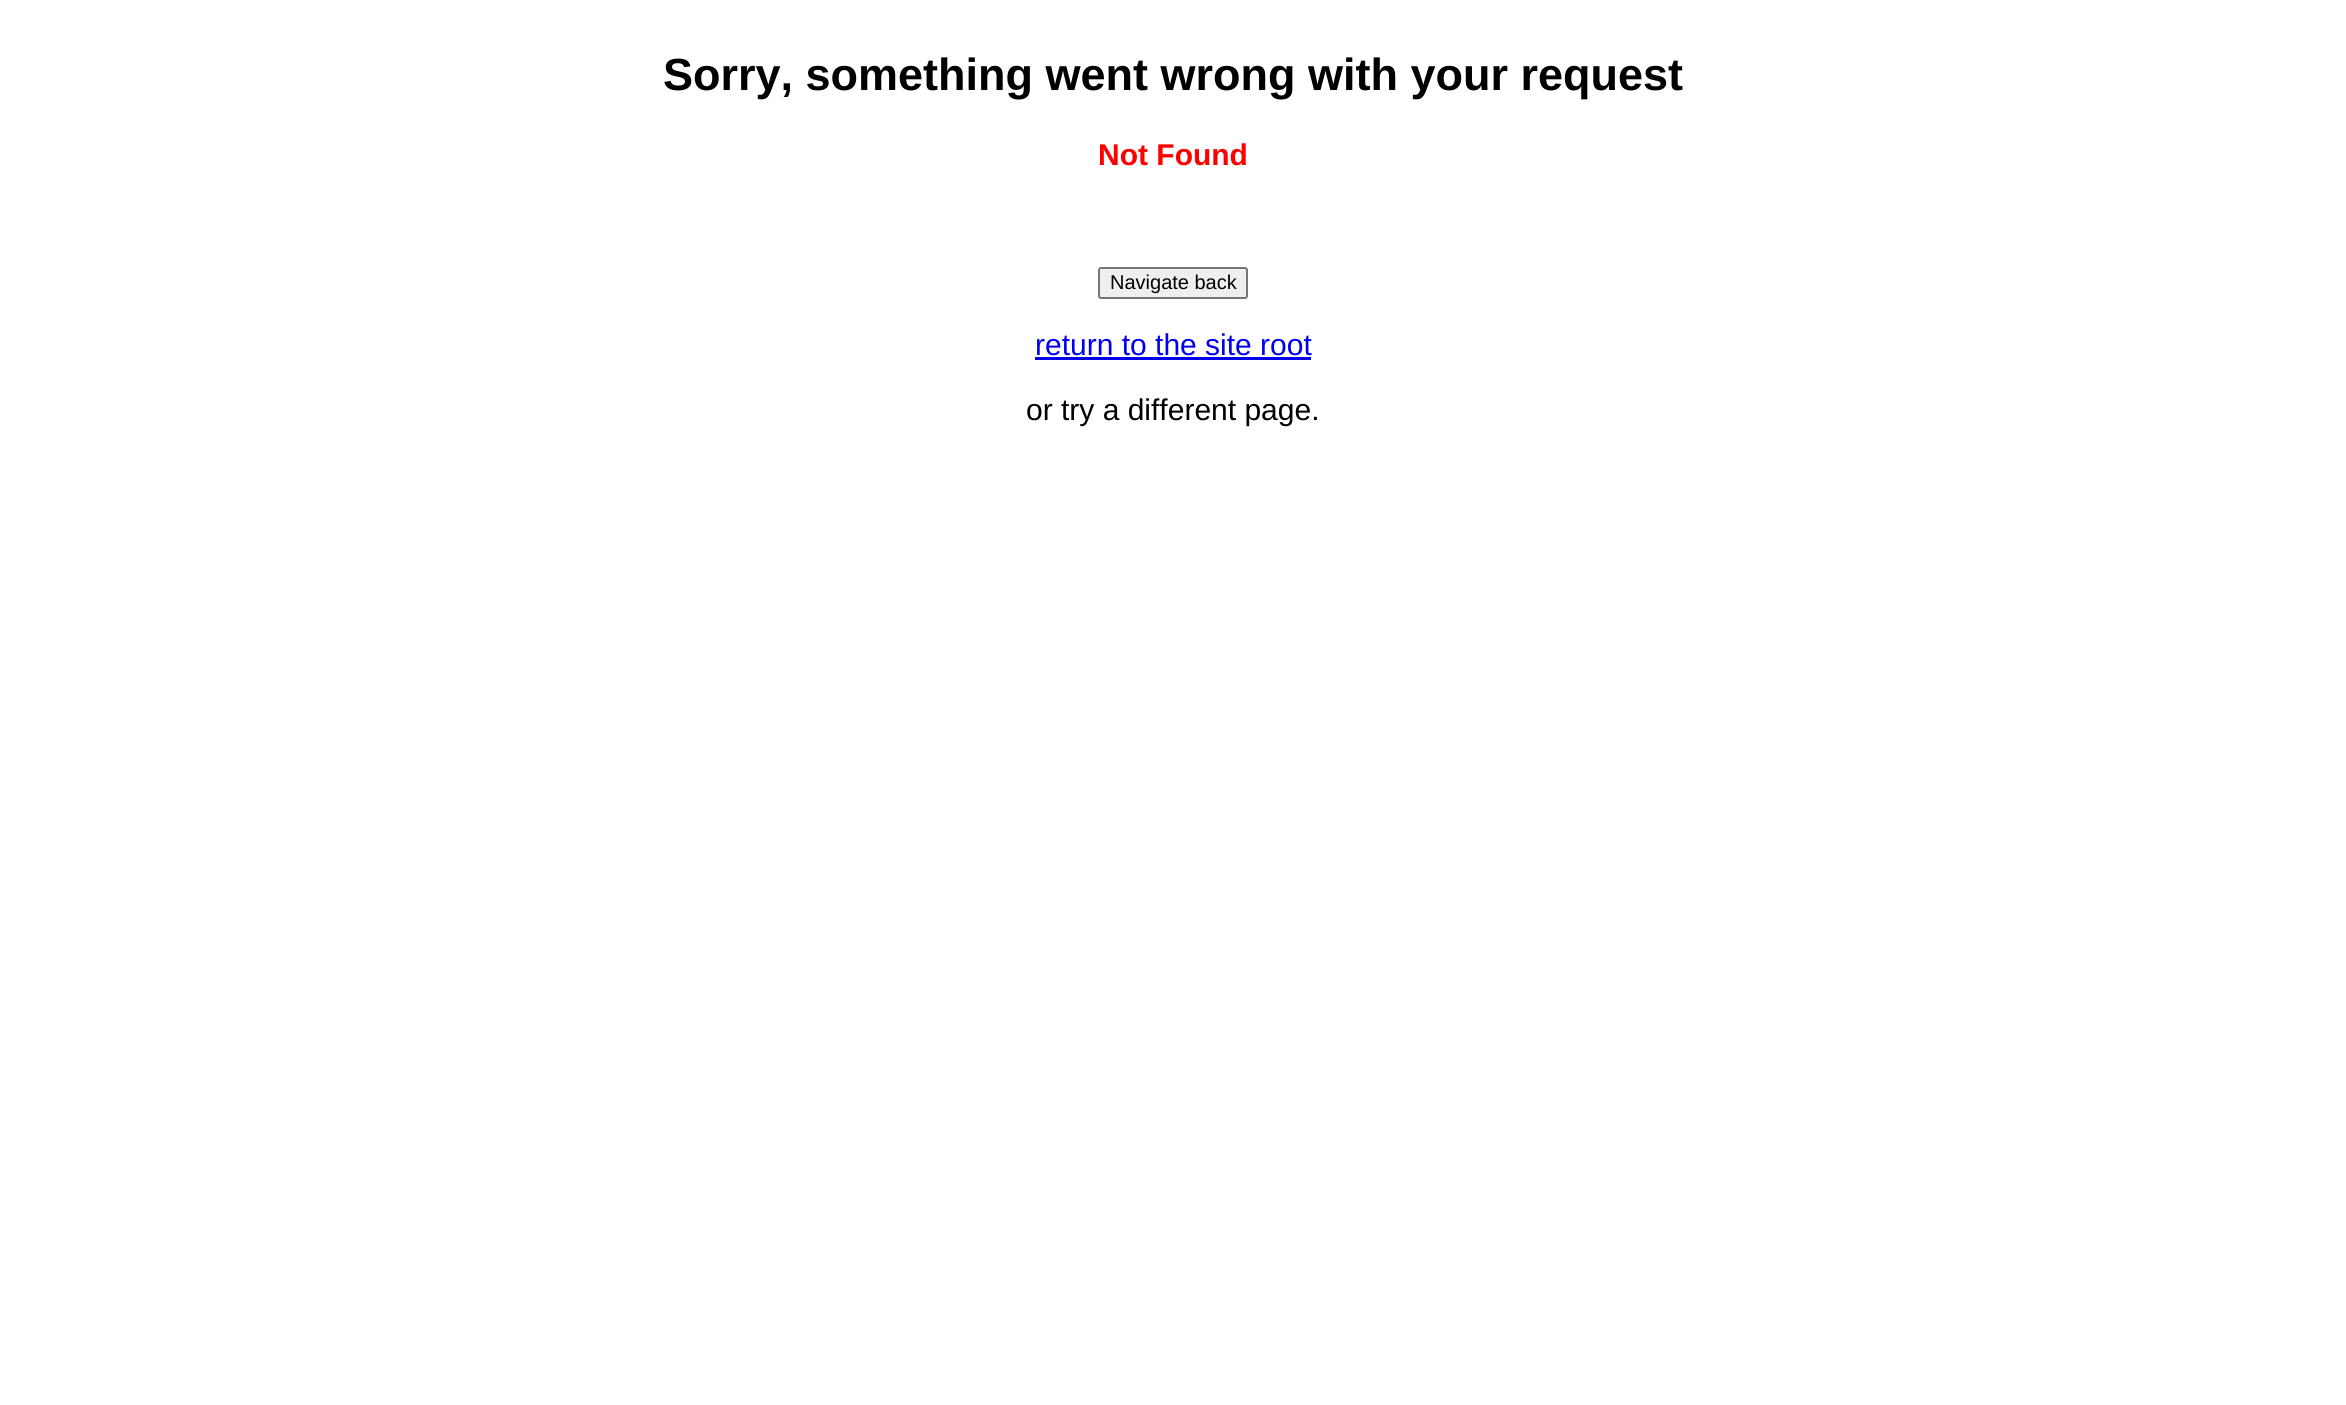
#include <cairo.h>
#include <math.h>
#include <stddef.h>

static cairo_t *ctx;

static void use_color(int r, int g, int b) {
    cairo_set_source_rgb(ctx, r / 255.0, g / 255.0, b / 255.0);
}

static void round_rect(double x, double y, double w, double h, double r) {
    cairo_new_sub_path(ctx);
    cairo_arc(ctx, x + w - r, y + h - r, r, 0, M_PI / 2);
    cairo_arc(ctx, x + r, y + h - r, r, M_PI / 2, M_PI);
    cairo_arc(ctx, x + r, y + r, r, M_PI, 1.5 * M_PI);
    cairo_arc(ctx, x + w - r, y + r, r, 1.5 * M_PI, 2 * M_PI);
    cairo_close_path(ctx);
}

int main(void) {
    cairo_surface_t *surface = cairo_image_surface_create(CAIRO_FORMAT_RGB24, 2346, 1405);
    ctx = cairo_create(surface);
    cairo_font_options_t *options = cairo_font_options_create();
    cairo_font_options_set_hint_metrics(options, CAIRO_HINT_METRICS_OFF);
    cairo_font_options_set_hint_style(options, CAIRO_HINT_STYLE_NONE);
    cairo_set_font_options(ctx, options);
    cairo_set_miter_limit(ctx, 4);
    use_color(255, 255, 255);
    cairo_paint(ctx);
    cairo_select_font_face(ctx, "Liberation Sans", CAIRO_FONT_SLANT_NORMAL, CAIRO_FONT_WEIGHT_BOLD);
    cairo_set_font_size(ctx, 45);
    use_color(0, 0, 0);
    cairo_move_to(ctx, 663, 90);
    cairo_show_text(ctx, "Sorry, something went wrong with your request");
    cairo_set_font_size(ctx, 30);
    use_color(255, 0, 0);
    cairo_move_to(ctx, 1098, 165);
    cairo_show_text(ctx, "Not Found");
    use_color(239, 239, 239);
    round_rect(1099, 268, 148, 30, 2);
    cairo_fill_preserve(ctx);
    use_color(118, 118, 118);
    cairo_stroke(ctx);
    cairo_select_font_face(ctx, "Liberation Sans", CAIRO_FONT_SLANT_NORMAL, CAIRO_FONT_WEIGHT_NORMAL);
    cairo_set_font_size(ctx, 20);
    use_color(0, 0, 0);
    cairo_move_to(ctx, 1110, 289);
    cairo_show_text(ctx, "Navigate back");
    cairo_set_font_size(ctx, 30);
    use_color(0, 0, 238);
    cairo_move_to(ctx, 1035, 355);
    cairo_show_text(ctx, "return to the site root");
    cairo_rectangle(ctx, 1035, 357, 276, 3);
    cairo_fill(ctx);
    use_color(0, 0, 0);
    cairo_move_to(ctx, 1026, 420);
    cairo_show_text(ctx, "or try a different page.");
    cairo_surface_write_to_png(surface, "result.png");
    cairo_font_options_destroy(options);
    cairo_destroy(ctx);
    cairo_surface_destroy(surface);
    return 0;
}
